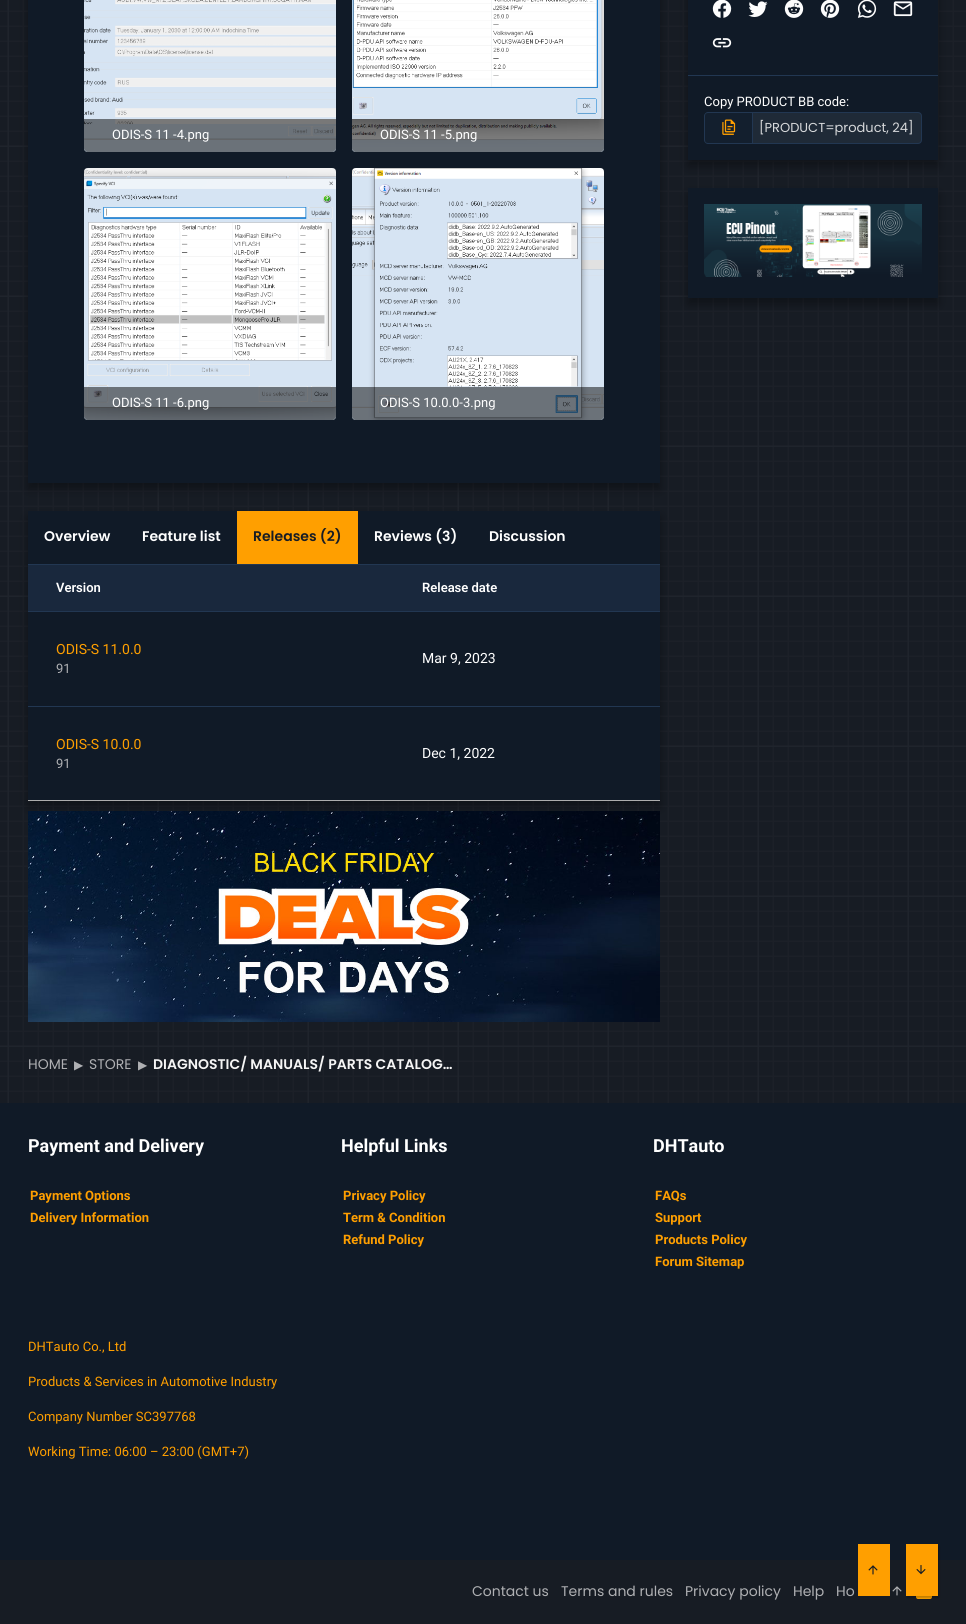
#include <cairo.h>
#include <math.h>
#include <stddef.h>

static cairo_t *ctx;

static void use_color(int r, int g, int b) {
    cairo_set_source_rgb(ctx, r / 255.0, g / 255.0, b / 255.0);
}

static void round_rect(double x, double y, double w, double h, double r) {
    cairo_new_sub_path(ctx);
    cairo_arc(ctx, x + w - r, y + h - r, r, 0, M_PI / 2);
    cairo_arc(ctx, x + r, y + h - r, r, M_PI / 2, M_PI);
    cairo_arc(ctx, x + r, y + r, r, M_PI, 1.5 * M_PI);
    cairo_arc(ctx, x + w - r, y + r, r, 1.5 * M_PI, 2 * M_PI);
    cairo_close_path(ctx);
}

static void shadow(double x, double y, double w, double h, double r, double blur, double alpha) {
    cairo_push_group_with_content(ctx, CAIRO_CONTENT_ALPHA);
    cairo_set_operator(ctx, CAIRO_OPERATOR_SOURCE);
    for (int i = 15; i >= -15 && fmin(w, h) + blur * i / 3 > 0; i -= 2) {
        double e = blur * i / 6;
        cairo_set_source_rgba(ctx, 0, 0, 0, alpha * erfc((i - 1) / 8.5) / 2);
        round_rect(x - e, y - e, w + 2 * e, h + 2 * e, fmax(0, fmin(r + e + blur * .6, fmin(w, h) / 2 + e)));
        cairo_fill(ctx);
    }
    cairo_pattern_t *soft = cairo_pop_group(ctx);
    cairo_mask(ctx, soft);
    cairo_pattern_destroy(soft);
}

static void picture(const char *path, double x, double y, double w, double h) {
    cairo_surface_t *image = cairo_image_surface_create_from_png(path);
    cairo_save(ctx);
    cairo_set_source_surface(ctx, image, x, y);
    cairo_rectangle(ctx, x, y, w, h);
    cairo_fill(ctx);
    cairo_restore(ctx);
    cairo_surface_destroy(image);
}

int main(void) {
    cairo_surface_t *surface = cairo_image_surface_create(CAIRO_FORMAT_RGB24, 966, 1624);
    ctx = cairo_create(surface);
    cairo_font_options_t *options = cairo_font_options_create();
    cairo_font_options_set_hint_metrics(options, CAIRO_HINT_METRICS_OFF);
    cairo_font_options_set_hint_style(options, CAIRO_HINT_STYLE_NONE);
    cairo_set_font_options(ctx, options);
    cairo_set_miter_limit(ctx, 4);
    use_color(23, 28, 36);
    cairo_paint(ctx);
    picture("img1.png", 0, 0, 966, 1103);
    use_color(0, 0, 0);
    shadow(688, -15, 250, 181, 0, 5, 0.35);
    use_color(16, 26, 39);
    cairo_rectangle(ctx, 688, 0, 250, 160);
    cairo_fill(ctx);
    picture("img2.png", 712, 0, 20, 18);
    picture("img3.png", 748, 1, 20, 16);
    picture("img4.png", 784, 0, 20, 18);
    picture("img5.png", 820, 0, 20, 18);
    picture("img6.png", 857, 0, 20, 18);
    picture("img7.png", 893, 1, 20, 16);
    picture("img8.png", 712, 38, 20, 10);
    use_color(34, 55, 82);
    cairo_rectangle(ctx, 688, 75, 250, 1);
    cairo_fill(ctx);
    cairo_select_font_face(ctx, "Roboto", CAIRO_FONT_SLANT_NORMAL, CAIRO_FONT_WEIGHT_NORMAL);
    cairo_set_font_size(ctx, 13);
    use_color(255, 255, 255);
    cairo_move_to(ctx, 704, 106);
    cairo_show_text(ctx, "Copy PRODUCT BB code:");
    use_color(19, 31, 46);
    cairo_new_path(ctx);
    cairo_move_to(ctx, 708, 112);
    cairo_line_to(ctx, 752, 112);
    cairo_line_to(ctx, 752, 144);
    cairo_line_to(ctx, 708, 144);
    cairo_curve_to(ctx, 706, 144, 704, 142, 704, 140);
    cairo_line_to(ctx, 704, 116);
    cairo_curve_to(ctx, 704, 114, 706, 112, 708, 112);
    cairo_close_path(ctx);
    cairo_fill(ctx);
    use_color(34, 55, 82);
    cairo_set_fill_rule(ctx, CAIRO_FILL_RULE_EVEN_ODD);
    cairo_new_path(ctx);
    cairo_move_to(ctx, 708, 112);
    cairo_line_to(ctx, 752, 112);
    cairo_line_to(ctx, 752, 144);
    cairo_line_to(ctx, 708, 144);
    cairo_curve_to(ctx, 706, 144, 704, 142, 704, 140);
    cairo_line_to(ctx, 704, 116);
    cairo_curve_to(ctx, 704, 114, 706, 112, 708, 112);
    cairo_close_path(ctx);
    cairo_move_to(ctx, 708, 113);
    cairo_line_to(ctx, 752, 113);
    cairo_line_to(ctx, 752, 143);
    cairo_line_to(ctx, 708, 143);
    cairo_curve_to(ctx, 706, 143, 705, 142, 705, 140);
    cairo_line_to(ctx, 705, 116);
    cairo_curve_to(ctx, 705, 114, 706, 113, 708, 113);
    cairo_close_path(ctx);
    cairo_fill(ctx);
    picture("img9.png", 722, 119, 14, 16);
    use_color(31, 42, 55);
    cairo_new_path(ctx);
    cairo_move_to(ctx, 752.5, 112.5);
    cairo_line_to(ctx, 918, 112.5);
    cairo_curve_to(ctx, 920, 112.5, 921.5, 114, 921.5, 116);
    cairo_line_to(ctx, 921.5, 140);
    cairo_curve_to(ctx, 921.5, 142, 920, 143.5, 918, 143.5);
    cairo_line_to(ctx, 752.5, 143.5);
    cairo_close_path(ctx);
    cairo_fill_preserve(ctx);
    use_color(34, 55, 82);
    cairo_set_line_width(ctx, 1);
    cairo_stroke(ctx);
    cairo_select_font_face(ctx, "Poppins", CAIRO_FONT_SLANT_NORMAL, CAIRO_FONT_WEIGHT_NORMAL);
    use_color(215, 217, 219);
    cairo_move_to(ctx, 759, 132);
    cairo_show_text(ctx, "[PRODUCT=product, 24]");
    use_color(0, 0, 0);
    shadow(688, 194, 250, 110, 0, 5, 0.35);
    use_color(16, 26, 39);
    cairo_rectangle(ctx, 688, 188, 250, 110);
    cairo_fill(ctx);
    picture("img10.png", 704, 204, 218, 73);
    use_color(0, 0, 0);
    shadow(28, -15, 632, 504, 0, 5, 0.35);
    use_color(16, 26, 39);
    cairo_rectangle(ctx, 28, 0, 632, 483);
    cairo_fill(ctx);
    picture("img11.png", 84, 0, 252, 152);
    cairo_set_source_rgba(ctx, 0, 0, 0, 0.5);
    cairo_new_path(ctx);
    cairo_move_to(ctx, 84, 119);
    cairo_line_to(ctx, 336, 119);
    cairo_line_to(ctx, 336, 148);
    cairo_curve_to(ctx, 336, 150, 334, 152, 332, 152);
    cairo_line_to(ctx, 88, 152);
    cairo_curve_to(ctx, 86, 152, 84, 150, 84, 148);
    cairo_close_path(ctx);
    cairo_fill(ctx);
    cairo_select_font_face(ctx, "Roboto", CAIRO_FONT_SLANT_NORMAL, CAIRO_FONT_WEIGHT_NORMAL);
    use_color(255, 255, 255);
    cairo_move_to(ctx, 112, 139);
    cairo_show_text(ctx, "ODIS-S 11 -4.png");
    picture("img12.png", 352, 0, 252, 152);
    cairo_set_source_rgba(ctx, 0, 0, 0, 0.5);
    cairo_new_path(ctx);
    cairo_move_to(ctx, 352, 119);
    cairo_line_to(ctx, 604, 119);
    cairo_line_to(ctx, 604, 148);
    cairo_curve_to(ctx, 604, 150, 602, 152, 600, 152);
    cairo_line_to(ctx, 356, 152);
    cairo_curve_to(ctx, 354, 152, 352, 150, 352, 148);
    cairo_close_path(ctx);
    cairo_fill(ctx);
    use_color(255, 255, 255);
    cairo_move_to(ctx, 380, 139);
    cairo_show_text(ctx, "ODIS-S 11 -5.png");
    picture("img13.png", 84, 168, 252, 252);
    cairo_set_source_rgba(ctx, 0, 0, 0, 0.5);
    cairo_new_path(ctx);
    cairo_move_to(ctx, 84, 387);
    cairo_line_to(ctx, 336, 387);
    cairo_line_to(ctx, 336, 416);
    cairo_curve_to(ctx, 336, 418, 334, 420, 332, 420);
    cairo_line_to(ctx, 88, 420);
    cairo_curve_to(ctx, 86, 420, 84, 418, 84, 416);
    cairo_close_path(ctx);
    cairo_fill(ctx);
    use_color(255, 255, 255);
    cairo_move_to(ctx, 112, 407);
    cairo_show_text(ctx, "ODIS-S 11 -6.png");
    picture("img14.png", 352, 168, 252, 252);
    cairo_set_source_rgba(ctx, 0, 0, 0, 0.5);
    cairo_new_path(ctx);
    cairo_move_to(ctx, 352, 387);
    cairo_line_to(ctx, 604, 387);
    cairo_line_to(ctx, 604, 416);
    cairo_curve_to(ctx, 604, 418, 602, 420, 600, 420);
    cairo_line_to(ctx, 356, 420);
    cairo_curve_to(ctx, 354, 420, 352, 418, 352, 416);
    cairo_close_path(ctx);
    cairo_fill(ctx);
    use_color(255, 255, 255);
    cairo_move_to(ctx, 380, 407);
    cairo_show_text(ctx, "ODIS-S 10.0.0-3.png");
    use_color(0, 0, 0);
    shadow(28, 517, 632, 290, 0, 5, 0.35);
    use_color(16, 26, 39);
    cairo_rectangle(ctx, 28, 511, 632, 289);
    cairo_fill(ctx);
    use_color(34, 55, 82);
    cairo_rectangle(ctx, 28, 564, 632, 1);
    cairo_fill(ctx);
    cairo_select_font_face(ctx, "Poppins SemiBold", CAIRO_FONT_SLANT_NORMAL, CAIRO_FONT_WEIGHT_NORMAL);
    cairo_set_font_size(ctx, 14);
    use_color(255, 255, 255);
    cairo_move_to(ctx, 44, 541);
    cairo_show_text(ctx, "Overview");
    cairo_move_to(ctx, 142, 541);
    cairo_show_text(ctx, "Feature list");
    use_color(255, 159, 0);
    cairo_rectangle(ctx, 237, 511, 121, 53);
    cairo_fill(ctx);
    use_color(23, 28, 36);
    cairo_move_to(ctx, 253, 541);
    cairo_show_text(ctx, "Releases (2)");
    use_color(255, 255, 255);
    cairo_move_to(ctx, 374, 541);
    cairo_show_text(ctx, "Reviews (3)");
    cairo_move_to(ctx, 489, 541);
    cairo_show_text(ctx, "Discussion");
    use_color(25, 40, 61);
    cairo_rectangle(ctx, 28, 565, 632, 46);
    cairo_fill(ctx);
    use_color(34, 55, 82);
    cairo_rectangle(ctx, 28, 611, 632, 1);
    cairo_fill(ctx);
    cairo_select_font_face(ctx, "Roboto SemiBold", CAIRO_FONT_SLANT_NORMAL, CAIRO_FONT_WEIGHT_NORMAL);
    cairo_set_font_size(ctx, 13);
    use_color(255, 255, 255);
    cairo_move_to(ctx, 56, 592);
    cairo_show_text(ctx, "Version");
    cairo_move_to(ctx, 422, 592);
    cairo_show_text(ctx, "Release date");
    use_color(34, 55, 82);
    cairo_rectangle(ctx, 28, 706, 632, 1);
    cairo_fill(ctx);
    cairo_select_font_face(ctx, "Roboto", CAIRO_FONT_SLANT_NORMAL, CAIRO_FONT_WEIGHT_NORMAL);
    cairo_set_font_size(ctx, 14);
    use_color(255, 159, 0);
    cairo_move_to(ctx, 56, 654);
    cairo_show_text(ctx, "ODIS-S 11.0.0");
    cairo_set_font_size(ctx, 13);
    use_color(175, 176, 179);
    cairo_move_to(ctx, 56, 673);
    cairo_show_text(ctx, "91");
    cairo_set_font_size(ctx, 14);
    use_color(255, 255, 255);
    cairo_move_to(ctx, 422, 663);
    cairo_show_text(ctx, "Mar 9, 2023");
    use_color(173, 173, 173);
    cairo_rectangle(ctx, 28, 800, 632, 1);
    cairo_fill(ctx);
    use_color(255, 159, 0);
    cairo_move_to(ctx, 56, 749);
    cairo_show_text(ctx, "ODIS-S 10.0.0");
    cairo_set_font_size(ctx, 13);
    use_color(175, 176, 179);
    cairo_move_to(ctx, 56, 768);
    cairo_show_text(ctx, "91");
    cairo_set_font_size(ctx, 14);
    use_color(255, 255, 255);
    cairo_move_to(ctx, 422, 758);
    cairo_show_text(ctx, "Dec 1, 2022");
    picture("img15.png", 28, 811, 632, 211);
    cairo_select_font_face(ctx, "Poppins", CAIRO_FONT_SLANT_NORMAL, CAIRO_FONT_WEIGHT_NORMAL);
    use_color(175, 176, 179);
    cairo_move_to(ctx, 28, 1069);
    cairo_show_text(ctx, "HOME");
    cairo_select_font_face(ctx, "DejaVu Sans", CAIRO_FONT_SLANT_NORMAL, CAIRO_FONT_WEIGHT_NORMAL);
    cairo_set_font_size(ctx, 12);
    cairo_move_to(ctx, 74, 1069);
    cairo_show_text(ctx, "▶");
    cairo_select_font_face(ctx, "Poppins", CAIRO_FONT_SLANT_NORMAL, CAIRO_FONT_WEIGHT_NORMAL);
    cairo_set_font_size(ctx, 14);
    cairo_move_to(ctx, 89, 1069);
    cairo_show_text(ctx, "STORE");
    cairo_select_font_face(ctx, "DejaVu Sans", CAIRO_FONT_SLANT_NORMAL, CAIRO_FONT_WEIGHT_NORMAL);
    cairo_set_font_size(ctx, 12);
    cairo_move_to(ctx, 138, 1069);
    cairo_show_text(ctx, "▶");
    cairo_select_font_face(ctx, "Poppins SemiBold", CAIRO_FONT_SLANT_NORMAL, CAIRO_FONT_WEIGHT_NORMAL);
    cairo_set_font_size(ctx, 14);
    use_color(245, 245, 245);
    cairo_move_to(ctx, 153, 1069);
    cairo_show_text(ctx, "DIAGNOSTIC/ MANUALS/ PARTS CATALOG…");
    use_color(16, 26, 39);
    cairo_rectangle(ctx, 0, 1103, 966, 457);
    cairo_fill(ctx);
    cairo_select_font_face(ctx, "Roboto", CAIRO_FONT_SLANT_NORMAL, CAIRO_FONT_WEIGHT_BOLD);
    cairo_set_font_size(ctx, 18);
    use_color(255, 255, 255);
    cairo_move_to(ctx, 28, 1152);
    cairo_show_text(ctx, "Payment and Delivery");
    cairo_set_font_size(ctx, 13);
    use_color(255, 159, 0);
    cairo_move_to(ctx, 30, 1200);
    cairo_show_text(ctx, "Payment Options");
    cairo_move_to(ctx, 30, 1222);
    cairo_show_text(ctx, "Delivery Information");
    cairo_set_font_size(ctx, 18);
    use_color(255, 255, 255);
    cairo_move_to(ctx, 341, 1152);
    cairo_show_text(ctx, "Helpful Links");
    cairo_set_font_size(ctx, 13);
    use_color(255, 159, 0);
    cairo_move_to(ctx, 343, 1200);
    cairo_show_text(ctx, "Privacy Policy");
    cairo_move_to(ctx, 343, 1222);
    cairo_show_text(ctx, "Term & Condition");
    cairo_move_to(ctx, 343, 1244);
    cairo_show_text(ctx, "Refund Policy");
    cairo_set_font_size(ctx, 18);
    use_color(255, 255, 255);
    cairo_move_to(ctx, 653, 1152);
    cairo_show_text(ctx, "DHTauto");
    cairo_set_font_size(ctx, 13);
    use_color(255, 159, 0);
    cairo_move_to(ctx, 655, 1200);
    cairo_show_text(ctx, "FAQs");
    cairo_move_to(ctx, 655, 1222);
    cairo_show_text(ctx, "Support");
    cairo_move_to(ctx, 655, 1244);
    cairo_show_text(ctx, "Products Policy");
    cairo_move_to(ctx, 655, 1266);
    cairo_show_text(ctx, "Forum Sitemap");
    cairo_select_font_face(ctx, "Roboto", CAIRO_FONT_SLANT_NORMAL, CAIRO_FONT_WEIGHT_NORMAL);
    cairo_move_to(ctx, 28, 1351);
    cairo_show_text(ctx, "DHTauto Co., Ltd");
    cairo_move_to(ctx, 28, 1386);
    cairo_show_text(ctx, "Products & Services in Automotive Industry");
    cairo_move_to(ctx, 28, 1421);
    cairo_show_text(ctx, "Company Number SC397768");
    cairo_move_to(ctx, 28, 1456);
    cairo_show_text(ctx, "Working Time: 06:00 – 23:00 (GMT+7)");
    cairo_select_font_face(ctx, "Poppins", CAIRO_FONT_SLANT_NORMAL, CAIRO_FONT_WEIGHT_NORMAL);
    cairo_set_font_size(ctx, 14);
    use_color(175, 176, 179);
    cairo_move_to(ctx, 472, 1596);
    cairo_show_text(ctx, "Contact us");
    cairo_move_to(ctx, 561, 1596);
    cairo_show_text(ctx, "Terms and rules");
    cairo_move_to(ctx, 685, 1596);
    cairo_show_text(ctx, "Privacy policy");
    cairo_move_to(ctx, 793, 1596);
    cairo_show_text(ctx, "Help");
    cairo_move_to(ctx, 836, 1596);
    cairo_show_text(ctx, "Ho");
    picture("img16.png", 892, 1586, 10, 10);
    use_color(255, 165, 0);
    round_rect(916, 1583, 16, 16, 2);
    cairo_fill(ctx);
    use_color(255, 159, 0);
    cairo_rectangle(ctx, 858, 1544, 32, 52);
    cairo_fill(ctx);
    picture("img17.png", 868, 1565, 10, 10);
    use_color(0, 0, 0);
    shadow(907, 1546, 32, 52, 0, 1, 0.25);
    use_color(255, 159, 0);
    cairo_rectangle(ctx, 906, 1544, 32, 52);
    cairo_fill(ctx);
    picture("img18.png", 916, 1565, 10, 10);
    cairo_surface_write_to_png(surface, "result.png");
    cairo_font_options_destroy(options);
    cairo_destroy(ctx);
    cairo_surface_destroy(surface);
    return 0;
}
